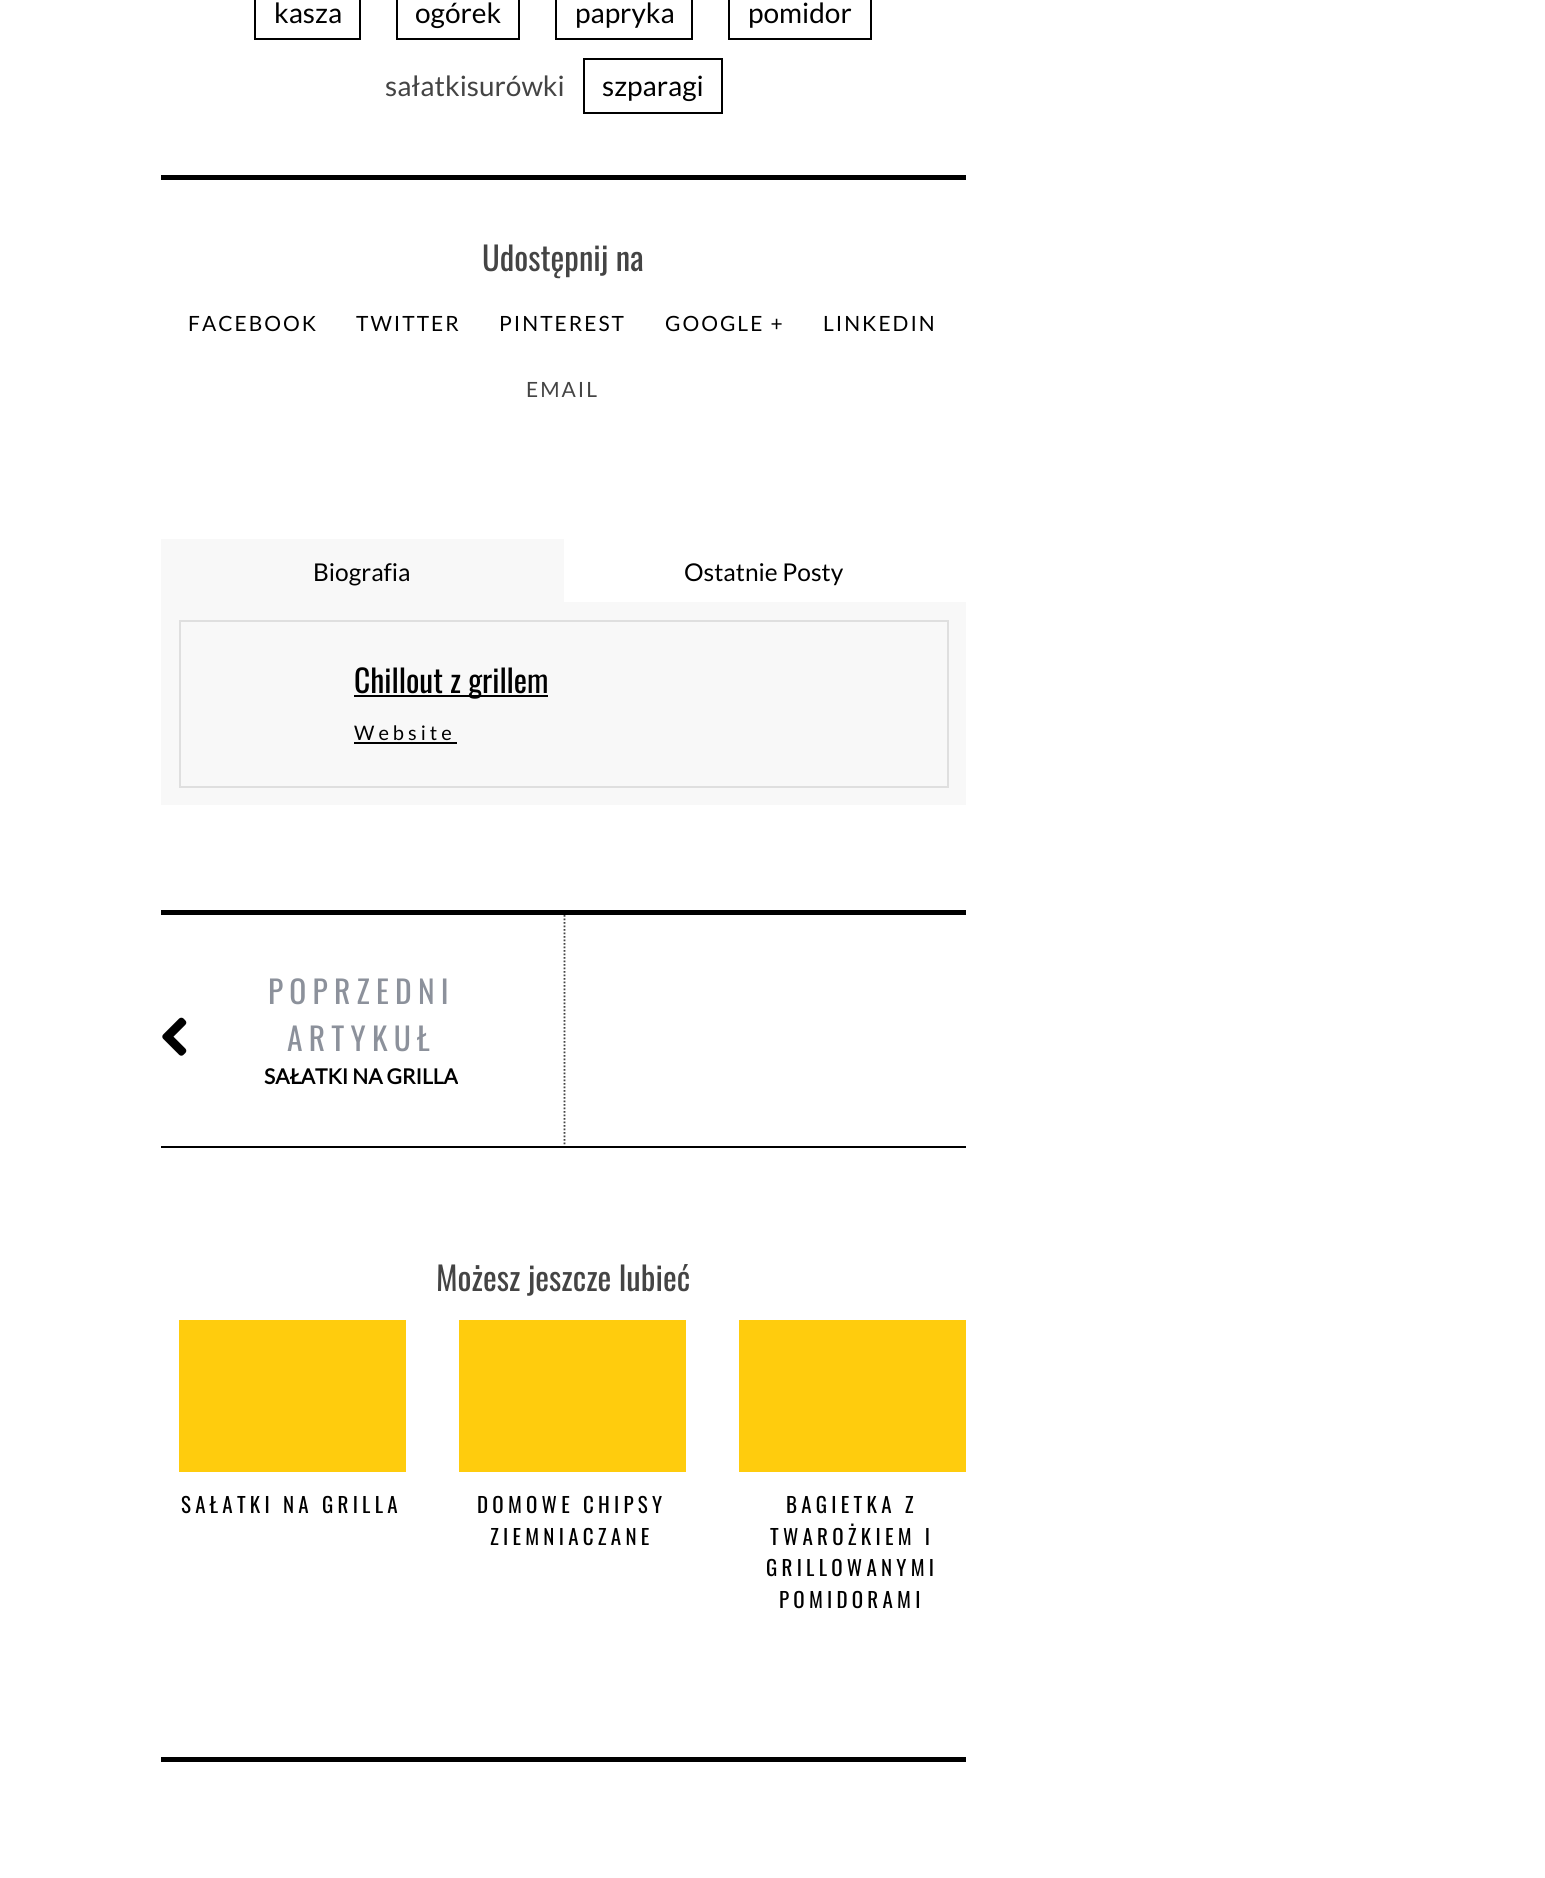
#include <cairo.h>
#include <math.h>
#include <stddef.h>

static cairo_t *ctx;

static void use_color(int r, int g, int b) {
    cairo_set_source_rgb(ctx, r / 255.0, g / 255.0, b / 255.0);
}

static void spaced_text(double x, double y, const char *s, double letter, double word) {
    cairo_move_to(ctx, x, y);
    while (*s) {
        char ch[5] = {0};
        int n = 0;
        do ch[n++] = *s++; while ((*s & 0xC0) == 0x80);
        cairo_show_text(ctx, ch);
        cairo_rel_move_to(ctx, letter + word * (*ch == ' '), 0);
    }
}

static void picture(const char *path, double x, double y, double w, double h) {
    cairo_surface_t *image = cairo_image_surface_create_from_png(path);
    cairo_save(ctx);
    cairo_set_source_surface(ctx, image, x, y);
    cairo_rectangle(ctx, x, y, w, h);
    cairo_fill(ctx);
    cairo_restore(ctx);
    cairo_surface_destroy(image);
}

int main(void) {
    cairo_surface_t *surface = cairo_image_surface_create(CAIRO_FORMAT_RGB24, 1545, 1878);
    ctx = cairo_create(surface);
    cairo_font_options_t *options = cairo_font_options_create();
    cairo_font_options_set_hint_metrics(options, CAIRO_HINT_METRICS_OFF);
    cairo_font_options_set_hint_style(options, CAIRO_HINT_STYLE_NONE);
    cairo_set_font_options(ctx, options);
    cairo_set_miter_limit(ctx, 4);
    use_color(255, 255, 255);
    cairo_paint(ctx);
    cairo_rectangle(ctx, 255, -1, 105, 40);
    use_color(0, 0, 0);
    cairo_stroke(ctx);
    cairo_select_font_face(ctx, "Lato", CAIRO_FONT_SLANT_NORMAL, CAIRO_FONT_WEIGHT_NORMAL);
    cairo_set_font_size(ctx, 28);
    cairo_move_to(ctx, 274, 23);
    cairo_show_text(ctx, "kasza");
    cairo_rectangle(ctx, 397, -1, 122, 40);
    cairo_stroke(ctx);
    cairo_move_to(ctx, 415, 23);
    cairo_show_text(ctx, "ogórek");
    cairo_rectangle(ctx, 556, -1, 136, 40);
    cairo_stroke(ctx);
    cairo_move_to(ctx, 575, 23);
    cairo_show_text(ctx, "papryka");
    cairo_rectangle(ctx, 729, -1, 142, 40);
    cairo_stroke(ctx);
    cairo_move_to(ctx, 748, 23);
    cairo_show_text(ctx, "pomidor");
    use_color(68, 68, 68);
    cairo_move_to(ctx, 385, 96);
    cairo_show_text(ctx, "sałatkisurówki");
    cairo_rectangle(ctx, 584, 59, 138, 54);
    use_color(0, 0, 0);
    cairo_stroke(ctx);
    cairo_move_to(ctx, 602, 96);
    cairo_show_text(ctx, "szparagi");
    cairo_rectangle(ctx, 161, 175, 805, 5);
    cairo_fill(ctx);
    cairo_select_font_face(ctx, "Oswald", CAIRO_FONT_SLANT_NORMAL, CAIRO_FONT_WEIGHT_NORMAL);
    cairo_set_font_size(ctx, 32.75);
    use_color(68, 68, 68);
    cairo_move_to(ctx, 482, 271);
    cairo_show_text(ctx, "Udostępnij na");
    cairo_select_font_face(ctx, "Lato", CAIRO_FONT_SLANT_NORMAL, CAIRO_FONT_WEIGHT_NORMAL);
    cairo_set_font_size(ctx, 21);
    use_color(0, 0, 0);
    spaced_text(188, 331, "FACEBOOK", 2, 0);
    spaced_text(356, 331, "TWITTER", 2, 0);
    spaced_text(499, 331, "PINTEREST", 2, 0);
    spaced_text(665, 331, "GOOGLE +", 2, 0);
    spaced_text(823, 331, "LINKEDIN", 2, 0);
    use_color(68, 68, 68);
    spaced_text(526, 397, "EMAIL", 2, 0);
    use_color(248, 248, 248);
    cairo_rectangle(ctx, 161, 539, 403, 63);
    cairo_fill(ctx);
    cairo_set_font_size(ctx, 24.5);
    use_color(0, 0, 0);
    cairo_move_to(ctx, 313, 581);
    cairo_show_text(ctx, "Biografia");
    cairo_move_to(ctx, 684, 581);
    cairo_show_text(ctx, "Ostatnie Posty");
    use_color(248, 248, 248);
    cairo_rectangle(ctx, 161, 602, 805, 203);
    cairo_fill(ctx);
    cairo_rectangle(ctx, 180, 621, 768, 166);
    use_color(223, 223, 223);
    cairo_stroke(ctx);
    use_color(0, 0, 0);
    cairo_rectangle(ctx, 354, 695, 194, 2);
    cairo_fill(ctx);
    cairo_select_font_face(ctx, "Oswald", CAIRO_FONT_SLANT_NORMAL, CAIRO_FONT_WEIGHT_NORMAL);
    cairo_set_font_size(ctx, 31.5);
    cairo_move_to(ctx, 354, 693);
    cairo_show_text(ctx, "Chillout z grillem");
    cairo_select_font_face(ctx, "Lato", CAIRO_FONT_SLANT_NORMAL, CAIRO_FONT_WEIGHT_NORMAL);
    cairo_set_font_size(ctx, 20);
    spaced_text(354, 740, "Website", 4, 0);
    cairo_rectangle(ctx, 354, 742, 103, 2);
    cairo_fill(ctx);
    cairo_rectangle(ctx, 161, 910, 805, 5);
    cairo_fill(ctx);
    cairo_rectangle(ctx, 161, 1146, 805, 2);
    cairo_fill(ctx);
    picture("img1.png", 162, 1017, 25, 39);
    cairo_select_font_face(ctx, "Oswald", CAIRO_FONT_SLANT_NORMAL, CAIRO_FONT_WEIGHT_NORMAL);
    cairo_set_font_size(ctx, 31.5);
    use_color(140, 145, 155);
    spaced_text(268, 1004, "POPRZEDNI", 6.25, 0);
    spaced_text(287, 1051, "ARTYKUŁ", 6.25, 0);
    cairo_select_font_face(ctx, "Lato", CAIRO_FONT_SLANT_NORMAL, CAIRO_FONT_WEIGHT_BOLD);
    cairo_set_font_size(ctx, 21);
    use_color(0, 0, 0);
    cairo_move_to(ctx, 264, 1084);
    cairo_show_text(ctx, "SAŁATKI NA GRILLA");
    cairo_new_path(ctx);
    cairo_move_to(ctx, 564.5, 915);
    cairo_line_to(ctx, 564.5, 1146);
    use_color(68, 68, 68);
    cairo_set_line_width(ctx, 1.8);
    cairo_set_dash(ctx, (double[]){1.75, 1.75}, 2, 0);
    cairo_stroke(ctx);
    use_color(0, 0, 0);
    cairo_rectangle(ctx, 161, 1757, 805, 5);
    cairo_fill(ctx);
    cairo_select_font_face(ctx, "Oswald", CAIRO_FONT_SLANT_NORMAL, CAIRO_FONT_WEIGHT_NORMAL);
    cairo_set_font_size(ctx, 32.75);
    use_color(68, 68, 68);
    cairo_move_to(ctx, 436, 1291);
    cairo_show_text(ctx, "Możesz jeszcze lubieć");
    use_color(255, 204, 13);
    cairo_rectangle(ctx, 179, 1320, 227, 152);
    cairo_fill(ctx);
    cairo_set_font_size(ctx, 21);
    use_color(0, 0, 0);
    spaced_text(181, 1513, "SAŁATKI NA GRILLA", 4.25, 0);
    use_color(255, 204, 13);
    cairo_rectangle(ctx, 459, 1320, 227, 152);
    cairo_fill(ctx);
    use_color(0, 0, 0);
    spaced_text(477, 1513, "DOMOWE CHIPSY", 4.25, 0);
    spaced_text(490, 1545, "ZIEMNIACZANE", 4.25, 0);
    use_color(255, 204, 13);
    cairo_rectangle(ctx, 739, 1320, 227, 152);
    cairo_fill(ctx);
    use_color(0, 0, 0);
    spaced_text(786, 1513, "BAGIETKA Z", 4.25, 0);
    spaced_text(770, 1545, "TWAROŻKIEM I", 4.25, 0);
    spaced_text(766, 1576, "GRILLOWANYMI", 4.25, 0);
    spaced_text(779, 1608, "POMIDORAMI", 4.25, 0);
    cairo_surface_write_to_png(surface, "result.png");
    cairo_font_options_destroy(options);
    cairo_destroy(ctx);
    cairo_surface_destroy(surface);
    return 0;
}
